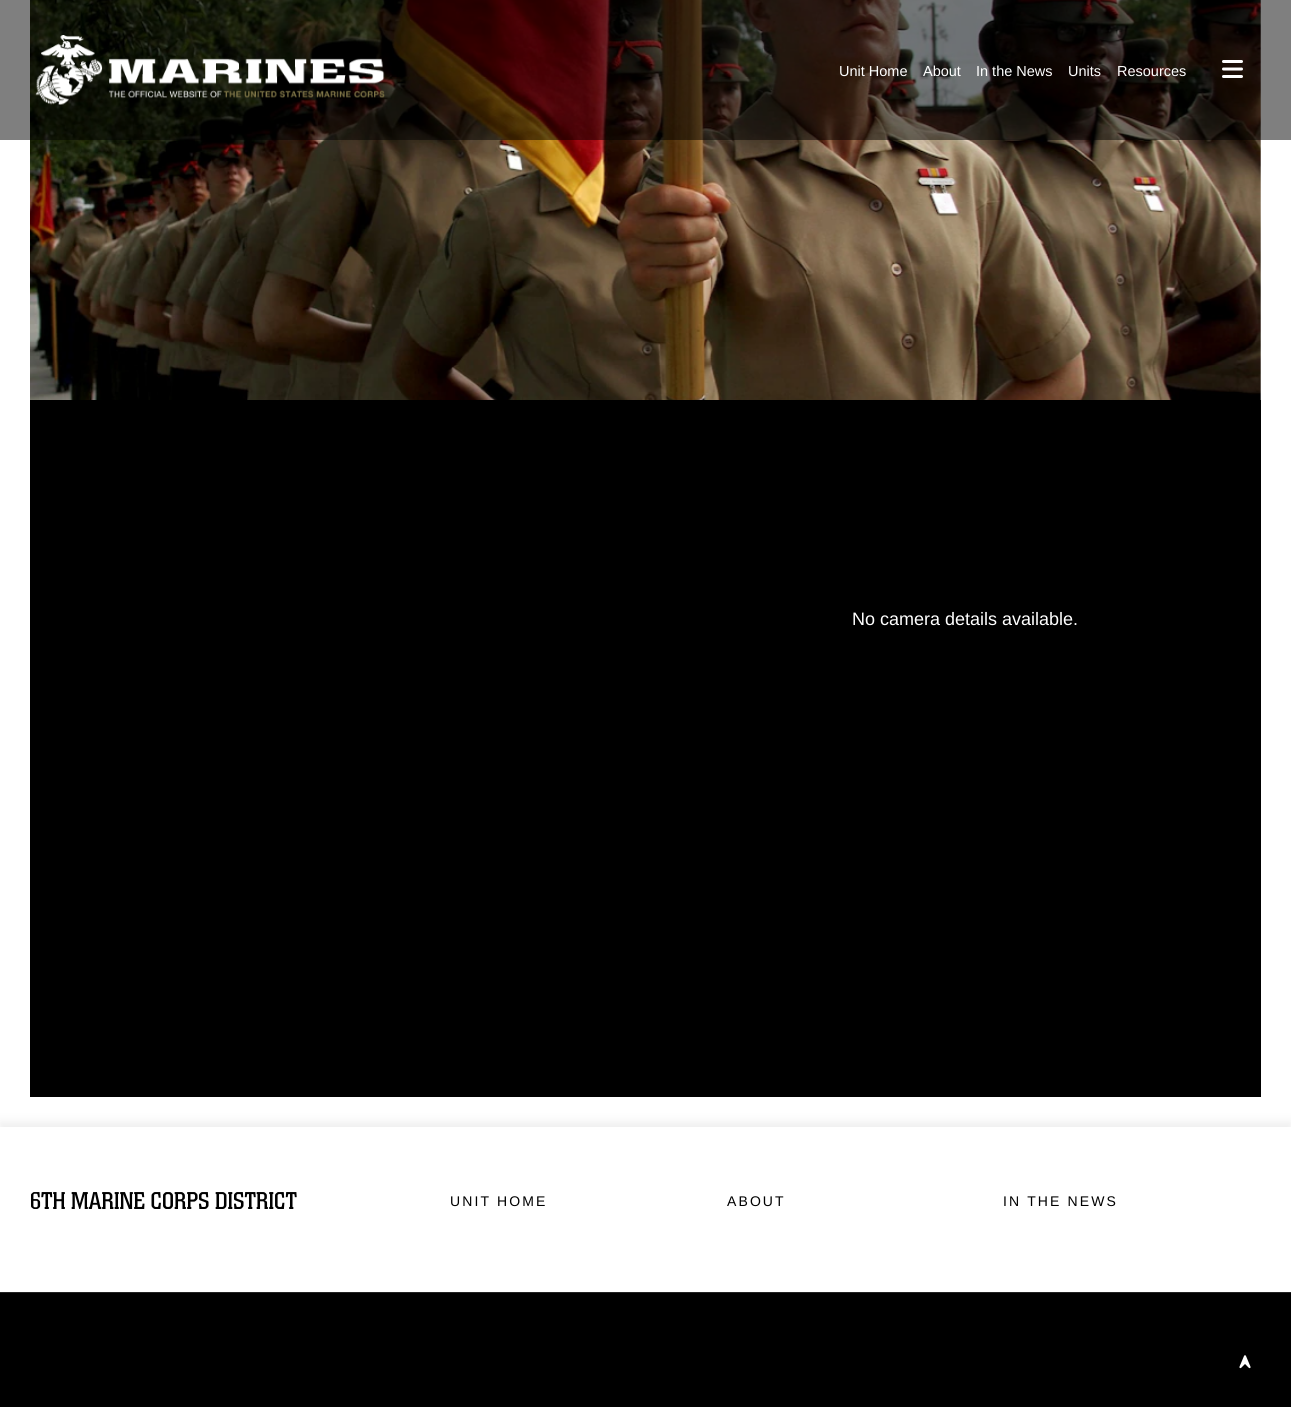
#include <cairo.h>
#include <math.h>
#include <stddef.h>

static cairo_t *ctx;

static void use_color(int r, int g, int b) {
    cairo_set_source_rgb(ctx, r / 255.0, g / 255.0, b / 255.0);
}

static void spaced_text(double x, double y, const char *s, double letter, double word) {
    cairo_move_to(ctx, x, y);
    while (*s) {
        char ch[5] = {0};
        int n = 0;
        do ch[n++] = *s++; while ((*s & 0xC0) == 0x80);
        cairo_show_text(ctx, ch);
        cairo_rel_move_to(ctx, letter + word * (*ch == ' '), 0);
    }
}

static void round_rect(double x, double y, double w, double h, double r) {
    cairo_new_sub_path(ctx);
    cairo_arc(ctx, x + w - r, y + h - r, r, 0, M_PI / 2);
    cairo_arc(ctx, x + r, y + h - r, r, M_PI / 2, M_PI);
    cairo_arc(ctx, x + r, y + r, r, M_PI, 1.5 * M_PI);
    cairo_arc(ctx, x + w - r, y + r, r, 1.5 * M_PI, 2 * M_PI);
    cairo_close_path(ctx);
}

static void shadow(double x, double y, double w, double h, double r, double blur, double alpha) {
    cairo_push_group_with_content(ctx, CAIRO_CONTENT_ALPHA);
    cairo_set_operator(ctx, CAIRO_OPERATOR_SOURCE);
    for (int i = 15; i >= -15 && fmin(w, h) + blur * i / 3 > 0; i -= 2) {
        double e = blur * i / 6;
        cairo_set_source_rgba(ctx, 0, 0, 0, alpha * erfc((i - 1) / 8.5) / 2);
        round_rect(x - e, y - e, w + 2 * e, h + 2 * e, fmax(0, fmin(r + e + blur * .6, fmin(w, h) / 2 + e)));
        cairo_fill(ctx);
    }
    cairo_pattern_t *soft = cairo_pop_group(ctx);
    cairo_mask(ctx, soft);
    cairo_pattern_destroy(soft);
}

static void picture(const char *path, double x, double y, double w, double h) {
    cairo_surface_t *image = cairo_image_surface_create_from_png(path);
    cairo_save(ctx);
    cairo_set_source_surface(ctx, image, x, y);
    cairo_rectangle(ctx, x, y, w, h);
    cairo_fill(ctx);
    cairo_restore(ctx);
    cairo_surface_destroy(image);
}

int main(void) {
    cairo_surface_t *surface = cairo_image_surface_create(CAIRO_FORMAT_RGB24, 1291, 1407);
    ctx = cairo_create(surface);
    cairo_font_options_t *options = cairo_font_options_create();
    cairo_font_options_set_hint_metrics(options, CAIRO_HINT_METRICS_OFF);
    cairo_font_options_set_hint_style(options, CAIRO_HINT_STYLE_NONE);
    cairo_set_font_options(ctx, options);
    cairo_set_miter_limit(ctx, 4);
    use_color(255, 255, 255);
    cairo_paint(ctx);
    picture("img3.png", 30, 0, 1231, 400);
    cairo_set_source_rgba(ctx, 0, 0, 0, 0.5);
    cairo_rectangle(ctx, 0, 0, 1291, 140);
    cairo_fill(ctx);
    picture("img1.png", 35, 35, 350, 70);
    cairo_select_font_face(ctx, "Liberation Sans", CAIRO_FONT_SLANT_NORMAL, CAIRO_FONT_WEIGHT_NORMAL);
    cairo_set_font_size(ctx, 14.5);
    use_color(255, 255, 255);
    cairo_move_to(ctx, 839, 76);
    cairo_show_text(ctx, "Unit Home");
    cairo_move_to(ctx, 923, 76);
    cairo_show_text(ctx, "About");
    cairo_move_to(ctx, 976, 76);
    cairo_show_text(ctx, "In the News");
    cairo_move_to(ctx, 1068, 76);
    cairo_show_text(ctx, "Units");
    cairo_move_to(ctx, 1117, 76);
    cairo_show_text(ctx, "Resources");
    picture("img2.png", 1222, 60, 21, 18);
    use_color(0, 0, 0);
    cairo_rectangle(ctx, 30, 400, 1231, 697);
    cairo_fill(ctx);
    cairo_set_font_size(ctx, 18);
    use_color(255, 255, 255);
    cairo_move_to(ctx, 852, 625);
    cairo_show_text(ctx, "No camera details available.");
    cairo_save(ctx);
    cairo_rectangle(ctx, 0, 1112, 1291, 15);
    cairo_clip(ctx);
    use_color(238, 238, 238);
    shadow(0, 1122, 1291, 165, 0, 5, 1);
    cairo_restore(ctx);
    cairo_select_font_face(ctx, "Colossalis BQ", CAIRO_FONT_SLANT_NORMAL, CAIRO_FONT_WEIGHT_NORMAL);
    cairo_set_font_size(ctx, 24);
    use_color(0, 0, 0);
    cairo_move_to(ctx, 30, 1209);
    cairo_show_text(ctx, "6TH MARINE CORPS DISTRICT");
    cairo_select_font_face(ctx, "Liberation Sans", CAIRO_FONT_SLANT_NORMAL, CAIRO_FONT_WEIGHT_NORMAL);
    cairo_set_font_size(ctx, 14);
    spaced_text(450, 1206, "UNIT HOME", 2.1, 0);
    spaced_text(727, 1206, "ABOUT", 2.1, 0);
    spaced_text(1003, 1206, "IN THE NEWS", 2.1, 0);
    cairo_rectangle(ctx, 0, 1293, 1291, 114);
    cairo_fill(ctx);
    use_color(35, 35, 35);
    cairo_rectangle(ctx, 0, 1292, 1291, 1);
    cairo_fill(ctx);
    picture("img4.png", 1239, 1355, 12, 14);
    cairo_surface_write_to_png(surface, "result.png");
    cairo_font_options_destroy(options);
    cairo_destroy(ctx);
    cairo_surface_destroy(surface);
    return 0;
}
